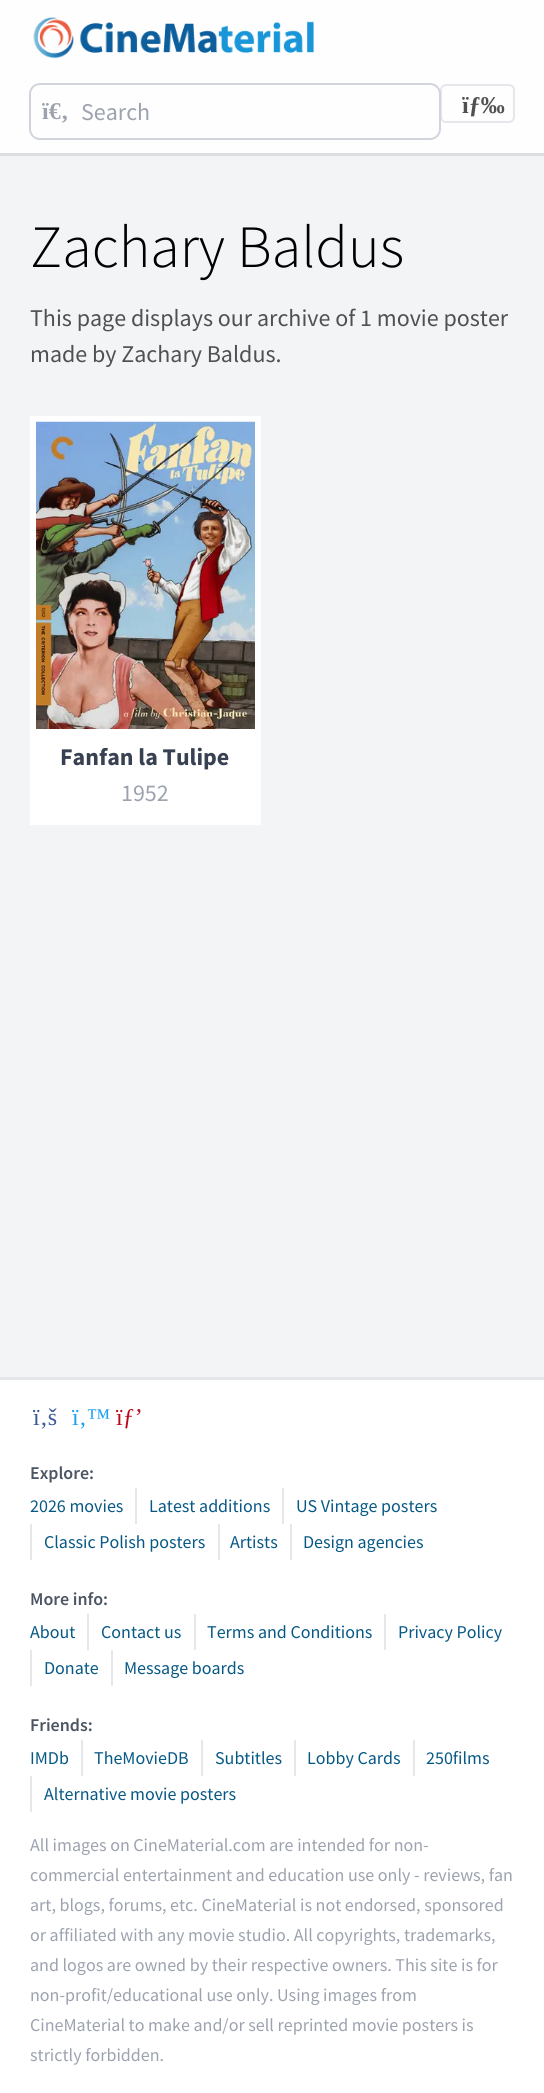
#include <cairo.h>
#include <math.h>
#include <stddef.h>

static cairo_t *ctx;

static void use_color(int r, int g, int b) {
    cairo_set_source_rgb(ctx, r / 255.0, g / 255.0, b / 255.0);
}

static void round_rect(double x, double y, double w, double h, double r) {
    cairo_new_sub_path(ctx);
    cairo_arc(ctx, x + w - r, y + h - r, r, 0, M_PI / 2);
    cairo_arc(ctx, x + r, y + h - r, r, M_PI / 2, M_PI);
    cairo_arc(ctx, x + r, y + r, r, M_PI, 1.5 * M_PI);
    cairo_arc(ctx, x + w - r, y + r, r, 1.5 * M_PI, 2 * M_PI);
    cairo_close_path(ctx);
}

static void picture(const char *path, double x, double y, double w, double h) {
    cairo_surface_t *image = cairo_image_surface_create_from_png(path);
    cairo_save(ctx);
    cairo_set_source_surface(ctx, image, x, y);
    cairo_rectangle(ctx, x, y, w, h);
    cairo_fill(ctx);
    cairo_restore(ctx);
    cairo_surface_destroy(image);
}

int main(void) {
    cairo_surface_t *surface = cairo_image_surface_create(CAIRO_FORMAT_RGB24, 544, 2093);
    ctx = cairo_create(surface);
    cairo_font_options_t *options = cairo_font_options_create();
    cairo_font_options_set_hint_metrics(options, CAIRO_HINT_METRICS_OFF);
    cairo_font_options_set_hint_style(options, CAIRO_HINT_STYLE_NONE);
    cairo_set_font_options(ctx, options);
    cairo_set_miter_limit(ctx, 4);
    use_color(243, 244, 246);
    cairo_paint(ctx);
    use_color(254, 254, 255);
    cairo_rectangle(ctx, 0, 0, 544, 153);
    cairo_fill(ctx);
    use_color(221, 221, 221);
    cairo_rectangle(ctx, 0, 153, 544, 3);
    cairo_fill(ctx);
    picture("img1.png", 33, 17, 281, 42);
    round_rect(441, 85, 73, 37, 5);
    use_color(229, 231, 235);
    cairo_stroke(ctx);
    round_rect(30, 84, 410, 55, 10);
    use_color(209, 213, 219);
    cairo_stroke(ctx);
    cairo_select_font_face(ctx, "Liberation Serif", CAIRO_FONT_SLANT_NORMAL, CAIRO_FONT_WEIGHT_BOLD);
    cairo_set_font_size(ctx, 24);
    use_color(156, 163, 175);
    cairo_move_to(ctx, 42, 119);
    cairo_show_text(ctx, "ï€‚");
    cairo_select_font_face(ctx, "Source Sans Pro", CAIRO_FONT_SLANT_NORMAL, CAIRO_FONT_WEIGHT_NORMAL);
    cairo_move_to(ctx, 81, 120);
    cairo_show_text(ctx, "Search");
    cairo_select_font_face(ctx, "Liberation Serif", CAIRO_FONT_SLANT_NORMAL, CAIRO_FONT_WEIGHT_BOLD);
    use_color(80, 80, 80);
    cairo_move_to(ctx, 462, 113);
    cairo_show_text(ctx, "ïƒ‰");
    cairo_select_font_face(ctx, "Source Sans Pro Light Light", CAIRO_FONT_SLANT_NORMAL, CAIRO_FONT_WEIGHT_NORMAL);
    cairo_set_font_size(ctx, 60);
    use_color(0, 0, 0);
    cairo_move_to(ctx, 30, 267);
    cairo_show_text(ctx, "Zachary Baldus");
    cairo_select_font_face(ctx, "Source Sans Pro", CAIRO_FONT_SLANT_NORMAL, CAIRO_FONT_WEIGHT_NORMAL);
    cairo_set_font_size(ctx, 24);
    use_color(80, 80, 80);
    cairo_move_to(ctx, 30, 326);
    cairo_show_text(ctx, "This page displays our archive of 1 movie poster");
    cairo_move_to(ctx, 30, 362);
    cairo_show_text(ctx, "made by Zachary Baldus.");
    use_color(255, 255, 255);
    cairo_rectangle(ctx, 30, 416, 231, 409);
    cairo_fill(ctx);
    picture("img2.png", 36, 421, 219, 308);
    cairo_select_font_face(ctx, "Source Sans Pro", CAIRO_FONT_SLANT_NORMAL, CAIRO_FONT_WEIGHT_BOLD);
    use_color(55, 65, 81);
    cairo_move_to(ctx, 60, 765);
    cairo_show_text(ctx, "Fanfan la Tulipe");
    cairo_select_font_face(ctx, "Source Sans Pro", CAIRO_FONT_SLANT_NORMAL, CAIRO_FONT_WEIGHT_NORMAL);
    use_color(156, 163, 175);
    cairo_move_to(ctx, 121, 801);
    cairo_show_text(ctx, "1952");
    use_color(255, 255, 255);
    cairo_rectangle(ctx, 0, 1380, 544, 713);
    cairo_fill(ctx);
    use_color(229, 231, 235);
    cairo_rectangle(ctx, 0, 1377, 544, 3);
    cairo_fill(ctx);
    cairo_select_font_face(ctx, "Liberation Serif", CAIRO_FONT_SLANT_NORMAL, CAIRO_FONT_WEIGHT_NORMAL);
    use_color(59, 89, 152);
    cairo_move_to(ctx, 33, 1425);
    cairo_show_text(ctx, "ï‚š");
    use_color(29, 161, 242);
    cairo_move_to(ctx, 72, 1425);
    cairo_show_text(ctx, "ï‚™");
    use_color(189, 8, 28);
    cairo_move_to(ctx, 116, 1425);
    cairo_show_text(ctx, "ïƒ’");
    cairo_select_font_face(ctx, "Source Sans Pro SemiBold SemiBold", CAIRO_FONT_SLANT_NORMAL, CAIRO_FONT_WEIGHT_NORMAL);
    cairo_set_font_size(ctx, 18);
    use_color(75, 85, 99);
    cairo_move_to(ctx, 30, 1479);
    cairo_show_text(ctx, "Explore:");
    cairo_select_font_face(ctx, "Source Sans Pro", CAIRO_FONT_SLANT_NORMAL, CAIRO_FONT_WEIGHT_NORMAL);
    use_color(7, 89, 133);
    cairo_move_to(ctx, 30, 1512);
    cairo_show_text(ctx, "2026 movies");
    use_color(229, 231, 235);
    cairo_rectangle(ctx, 135, 1488, 2, 36);
    cairo_fill(ctx);
    use_color(7, 89, 133);
    cairo_move_to(ctx, 149, 1512);
    cairo_show_text(ctx, "Latest additions");
    use_color(229, 231, 235);
    cairo_rectangle(ctx, 282, 1488, 2, 36);
    cairo_fill(ctx);
    use_color(7, 89, 133);
    cairo_move_to(ctx, 296, 1512);
    cairo_show_text(ctx, "US Vintage posters");
    use_color(229, 231, 235);
    cairo_rectangle(ctx, 30, 1524, 2, 36);
    cairo_fill(ctx);
    use_color(7, 89, 133);
    cairo_move_to(ctx, 44, 1548);
    cairo_show_text(ctx, "Classic Polish posters");
    use_color(229, 231, 235);
    cairo_rectangle(ctx, 218, 1524, 2, 36);
    cairo_fill(ctx);
    use_color(7, 89, 133);
    cairo_move_to(ctx, 230, 1548);
    cairo_show_text(ctx, "Artists");
    use_color(229, 231, 235);
    cairo_rectangle(ctx, 290, 1524, 2, 36);
    cairo_fill(ctx);
    use_color(7, 89, 133);
    cairo_move_to(ctx, 303, 1548);
    cairo_show_text(ctx, "Design agencies");
    cairo_select_font_face(ctx, "Source Sans Pro SemiBold SemiBold", CAIRO_FONT_SLANT_NORMAL, CAIRO_FONT_WEIGHT_NORMAL);
    use_color(75, 85, 99);
    cairo_move_to(ctx, 30, 1605);
    cairo_show_text(ctx, "More info:");
    cairo_select_font_face(ctx, "Source Sans Pro", CAIRO_FONT_SLANT_NORMAL, CAIRO_FONT_WEIGHT_NORMAL);
    use_color(7, 89, 133);
    cairo_move_to(ctx, 30, 1638);
    cairo_show_text(ctx, "About");
    use_color(229, 231, 235);
    cairo_rectangle(ctx, 87, 1614, 2, 36);
    cairo_fill(ctx);
    use_color(7, 89, 133);
    cairo_move_to(ctx, 101, 1638);
    cairo_show_text(ctx, "Contact us");
    use_color(229, 231, 235);
    cairo_rectangle(ctx, 194, 1614, 2, 36);
    cairo_fill(ctx);
    use_color(7, 89, 133);
    cairo_move_to(ctx, 207, 1638);
    cairo_show_text(ctx, "Terms and Conditions");
    use_color(229, 231, 235);
    cairo_rectangle(ctx, 384, 1614, 2, 36);
    cairo_fill(ctx);
    use_color(7, 89, 133);
    cairo_move_to(ctx, 398, 1638);
    cairo_show_text(ctx, "Privacy Policy");
    use_color(229, 231, 235);
    cairo_rectangle(ctx, 30, 1650, 2, 36);
    cairo_fill(ctx);
    use_color(7, 89, 133);
    cairo_move_to(ctx, 44, 1674);
    cairo_show_text(ctx, "Donate");
    use_color(229, 231, 235);
    cairo_rectangle(ctx, 111, 1650, 2, 36);
    cairo_fill(ctx);
    use_color(7, 89, 133);
    cairo_move_to(ctx, 124, 1674);
    cairo_show_text(ctx, "Message boards");
    cairo_select_font_face(ctx, "Source Sans Pro SemiBold SemiBold", CAIRO_FONT_SLANT_NORMAL, CAIRO_FONT_WEIGHT_NORMAL);
    use_color(75, 85, 99);
    cairo_move_to(ctx, 30, 1731);
    cairo_show_text(ctx, "Friends:");
    cairo_select_font_face(ctx, "Source Sans Pro", CAIRO_FONT_SLANT_NORMAL, CAIRO_FONT_WEIGHT_NORMAL);
    use_color(7, 89, 133);
    cairo_move_to(ctx, 30, 1764);
    cairo_show_text(ctx, "IMDb");
    use_color(229, 231, 235);
    cairo_rectangle(ctx, 81, 1740, 2, 36);
    cairo_fill(ctx);
    use_color(7, 89, 133);
    cairo_move_to(ctx, 94, 1764);
    cairo_show_text(ctx, "TheMovieDB");
    use_color(229, 231, 235);
    cairo_rectangle(ctx, 201, 1740, 2, 36);
    cairo_fill(ctx);
    use_color(7, 89, 133);
    cairo_move_to(ctx, 215, 1764);
    cairo_show_text(ctx, "Subtitles");
    use_color(229, 231, 235);
    cairo_rectangle(ctx, 294, 1740, 2, 36);
    cairo_fill(ctx);
    use_color(7, 89, 133);
    cairo_move_to(ctx, 307, 1764);
    cairo_show_text(ctx, "Lobby Cards");
    use_color(229, 231, 235);
    cairo_rectangle(ctx, 413, 1740, 2, 36);
    cairo_fill(ctx);
    use_color(7, 89, 133);
    cairo_move_to(ctx, 426, 1764);
    cairo_show_text(ctx, "250films");
    use_color(229, 231, 235);
    cairo_rectangle(ctx, 30, 1776, 2, 36);
    cairo_fill(ctx);
    use_color(7, 89, 133);
    cairo_move_to(ctx, 44, 1800);
    cairo_show_text(ctx, "Alternative movie posters");
    use_color(156, 163, 175);
    cairo_move_to(ctx, 30, 1851);
    cairo_show_text(ctx, "All images on CineMaterial.com are intended for non-");
    cairo_move_to(ctx, 30, 1881);
    cairo_show_text(ctx, "commercial entertainment and education use only - reviews, fan");
    cairo_move_to(ctx, 30, 1911);
    cairo_show_text(ctx, "art, blogs, forums, etc. CineMaterial is not endorsed, sponsored");
    cairo_move_to(ctx, 30, 1941);
    cairo_show_text(ctx, "or affiliated with any movie studio. All copyrights, trademarks,");
    cairo_move_to(ctx, 30, 1971);
    cairo_show_text(ctx, "and logos are owned by their respective owners. This site is for");
    cairo_move_to(ctx, 30, 2001);
    cairo_show_text(ctx, "non-profit/educational use only. Using images from");
    cairo_move_to(ctx, 30, 2031);
    cairo_show_text(ctx, "CineMaterial to make and/or sell reprinted movie posters is");
    cairo_move_to(ctx, 30, 2061);
    cairo_show_text(ctx, "strictly forbidden.");
    cairo_surface_write_to_png(surface, "result.png");
    cairo_font_options_destroy(options);
    cairo_destroy(ctx);
    cairo_surface_destroy(surface);
    return 0;
}
